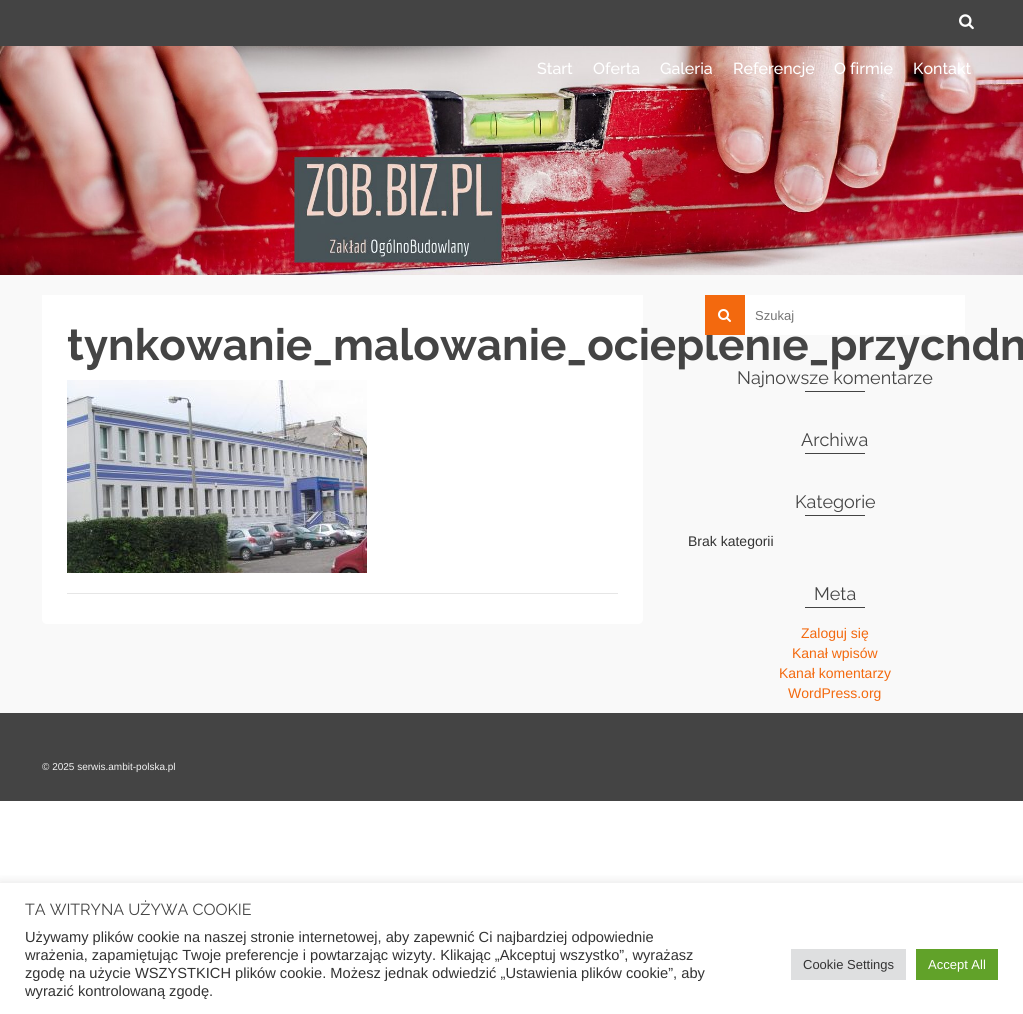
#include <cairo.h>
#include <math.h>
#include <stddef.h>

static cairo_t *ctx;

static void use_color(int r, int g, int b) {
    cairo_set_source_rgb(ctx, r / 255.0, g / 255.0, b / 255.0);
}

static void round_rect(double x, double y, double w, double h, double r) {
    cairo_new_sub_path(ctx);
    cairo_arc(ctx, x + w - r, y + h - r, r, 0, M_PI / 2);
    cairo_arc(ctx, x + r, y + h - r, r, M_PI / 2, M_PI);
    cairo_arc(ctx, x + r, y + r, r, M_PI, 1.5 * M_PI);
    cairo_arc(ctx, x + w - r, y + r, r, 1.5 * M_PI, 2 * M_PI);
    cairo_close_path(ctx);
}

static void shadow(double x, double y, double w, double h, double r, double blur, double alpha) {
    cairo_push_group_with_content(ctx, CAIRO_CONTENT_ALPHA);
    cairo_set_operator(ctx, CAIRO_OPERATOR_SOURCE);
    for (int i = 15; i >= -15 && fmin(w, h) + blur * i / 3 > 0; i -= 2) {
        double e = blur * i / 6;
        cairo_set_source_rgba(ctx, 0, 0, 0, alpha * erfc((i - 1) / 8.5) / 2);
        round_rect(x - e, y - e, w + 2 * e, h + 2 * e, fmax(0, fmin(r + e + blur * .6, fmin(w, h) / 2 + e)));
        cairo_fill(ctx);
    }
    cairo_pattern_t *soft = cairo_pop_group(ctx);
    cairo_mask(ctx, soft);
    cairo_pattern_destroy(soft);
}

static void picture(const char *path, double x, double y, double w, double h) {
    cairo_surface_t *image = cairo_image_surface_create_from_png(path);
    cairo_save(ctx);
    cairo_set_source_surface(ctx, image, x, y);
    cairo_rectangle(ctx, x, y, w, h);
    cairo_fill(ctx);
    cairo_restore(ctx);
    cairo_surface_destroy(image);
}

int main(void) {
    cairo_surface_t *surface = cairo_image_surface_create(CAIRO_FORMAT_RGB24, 1023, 1014);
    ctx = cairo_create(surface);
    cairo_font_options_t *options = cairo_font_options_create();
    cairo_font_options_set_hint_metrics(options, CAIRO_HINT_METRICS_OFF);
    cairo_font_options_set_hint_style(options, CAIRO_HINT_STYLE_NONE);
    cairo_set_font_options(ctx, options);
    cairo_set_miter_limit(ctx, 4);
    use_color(255, 255, 255);
    cairo_paint(ctx);
    use_color(68, 68, 68);
    cairo_rectangle(ctx, 0, 0, 1023, 46);
    cairo_fill(ctx);
    picture("img1.png", 959, 14, 15, 16);
    picture("img2.png", 0, 46, 1023, 229);
    cairo_select_font_face(ctx, "Raleway Medium", CAIRO_FONT_SLANT_NORMAL, CAIRO_FONT_WEIGHT_NORMAL);
    cairo_set_font_size(ctx, 16);
    use_color(255, 255, 255);
    cairo_move_to(ctx, 537, 74);
    cairo_show_text(ctx, "Start");
    cairo_move_to(ctx, 593, 74);
    cairo_show_text(ctx, "Oferta");
    cairo_move_to(ctx, 660, 74);
    cairo_show_text(ctx, "Galeria");
    cairo_move_to(ctx, 733, 74);
    cairo_show_text(ctx, "Referencje");
    cairo_move_to(ctx, 834, 74);
    cairo_show_text(ctx, "O firmie");
    cairo_move_to(ctx, 913, 74);
    cairo_show_text(ctx, "Kontakt");
    use_color(249, 249, 249);
    cairo_rectangle(ctx, 0, 275, 1023, 438);
    cairo_fill(ctx);
    use_color(255, 255, 255);
    cairo_new_path(ctx);
    cairo_move_to(ctx, 42, 295);
    cairo_line_to(ctx, 643, 295);
    cairo_line_to(ctx, 643, 619);
    cairo_curve_to(ctx, 643, 622, 641, 624, 638, 624);
    cairo_line_to(ctx, 47, 624);
    cairo_curve_to(ctx, 44, 624, 42, 622, 42, 619);
    cairo_close_path(ctx);
    cairo_fill(ctx);
    cairo_select_font_face(ctx, "Raleway", CAIRO_FONT_SLANT_NORMAL, CAIRO_FONT_WEIGHT_BOLD);
    cairo_set_font_size(ctx, 44);
    use_color(68, 68, 68);
    cairo_move_to(ctx, 67, 360);
    cairo_show_text(ctx, "tynkowanie_malowanie_ocieplenie_przychdn");
    use_color(243, 105, 14);
    cairo_rectangle(ctx, 705, 295, 40, 40);
    cairo_fill(ctx);
    picture("img3.png", 718, 309, 13, 13);
    use_color(255, 255, 255);
    cairo_rectangle(ctx, 745, 295, 220, 40);
    cairo_fill(ctx);
    cairo_select_font_face(ctx, "Liberation Sans", CAIRO_FONT_SLANT_NORMAL, CAIRO_FONT_WEIGHT_NORMAL);
    cairo_set_font_size(ctx, 13);
    use_color(117, 117, 117);
    cairo_move_to(ctx, 755, 320);
    cairo_show_text(ctx, "Szukaj");
    cairo_select_font_face(ctx, "Raleway", CAIRO_FONT_SLANT_NORMAL, CAIRO_FONT_WEIGHT_NORMAL);
    cairo_set_font_size(ctx, 18);
    use_color(68, 68, 68);
    cairo_move_to(ctx, 737, 384);
    cairo_show_text(ctx, "Najnowsze komentarze");
    cairo_rectangle(ctx, 805, 391, 60, 1);
    cairo_fill(ctx);
    cairo_move_to(ctx, 801, 446);
    cairo_show_text(ctx, "Archiwa");
    cairo_rectangle(ctx, 805, 453, 60, 1);
    cairo_fill(ctx);
    cairo_move_to(ctx, 795, 508);
    cairo_show_text(ctx, "Kategorie");
    cairo_rectangle(ctx, 805, 515, 60, 1);
    cairo_fill(ctx);
    cairo_select_font_face(ctx, "Liberation Sans", CAIRO_FONT_SLANT_NORMAL, CAIRO_FONT_WEIGHT_NORMAL);
    cairo_set_font_size(ctx, 14);
    use_color(51, 51, 51);
    cairo_move_to(ctx, 688, 546);
    cairo_show_text(ctx, "Brak kategorii");
    cairo_select_font_face(ctx, "Raleway", CAIRO_FONT_SLANT_NORMAL, CAIRO_FONT_WEIGHT_NORMAL);
    cairo_set_font_size(ctx, 18);
    use_color(68, 68, 68);
    cairo_move_to(ctx, 814, 600);
    cairo_show_text(ctx, "Meta");
    cairo_rectangle(ctx, 805, 607, 60, 1);
    cairo_fill(ctx);
    cairo_select_font_face(ctx, "Liberation Sans", CAIRO_FONT_SLANT_NORMAL, CAIRO_FONT_WEIGHT_NORMAL);
    cairo_set_font_size(ctx, 14);
    use_color(243, 105, 14);
    cairo_move_to(ctx, 801, 638);
    cairo_show_text(ctx, "Zaloguj się");
    cairo_move_to(ctx, 792, 658);
    cairo_show_text(ctx, "Kanał wpisów");
    cairo_move_to(ctx, 779, 678);
    cairo_show_text(ctx, "Kanał komentarzy");
    cairo_move_to(ctx, 788, 698);
    cairo_show_text(ctx, "WordPress.org");
    picture("img4.png", 67, 380, 300, 193);
    use_color(230, 230, 230);
    cairo_rectangle(ctx, 67, 593, 551, 1);
    cairo_fill(ctx);
    use_color(68, 68, 68);
    cairo_rectangle(ctx, 0, 713, 1023, 88);
    cairo_fill(ctx);
    cairo_set_font_size(ctx, 10);
    use_color(242, 242, 242);
    cairo_move_to(ctx, 42, 770);
    cairo_show_text(ctx, "© 2025 serwis.ambit-polska.pl");
    cairo_save(ctx);
    cairo_rectangle(ctx, 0, 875, 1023, 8);
    cairo_clip(ctx);
    use_color(172, 171, 171);
    shadow(0, 882, 1023, 131, 0, 5, 0.3);
    cairo_restore(ctx);
    cairo_select_font_face(ctx, "Raleway", CAIRO_FONT_SLANT_NORMAL, CAIRO_FONT_WEIGHT_NORMAL);
    cairo_set_font_size(ctx, 16);
    use_color(68, 68, 68);
    cairo_move_to(ctx, 25, 915);
    cairo_show_text(ctx, "TA WITRYNA UŻYWA COOKIE");
    cairo_select_font_face(ctx, "Liberation Sans", CAIRO_FONT_SLANT_NORMAL, CAIRO_FONT_WEIGHT_NORMAL);
    cairo_set_font_size(ctx, 14.65);
    use_color(51, 51, 51);
    cairo_move_to(ctx, 25, 942);
    cairo_show_text(ctx, "Używamy plików cookie na naszej stronie internetowej, aby zapewnić Ci najbardziej odpowiednie");
    cairo_move_to(ctx, 25, 960);
    cairo_show_text(ctx, "wrażenia, zapamiętując Twoje preferencje i powtarzając wizyty. Klikając „Akceptuj wszystko”, wyrażasz");
    cairo_move_to(ctx, 25, 978);
    cairo_show_text(ctx, "zgodę na użycie WSZYSTKICH plików cookie. Możesz jednak odwiedzić „Ustawienia plików cookie”, aby");
    cairo_move_to(ctx, 25, 996);
    cairo_show_text(ctx, "wyrazić kontrolowaną zgodę.");
    use_color(222, 223, 224);
    cairo_rectangle(ctx, 791, 949, 115, 31);
    cairo_fill(ctx);
    cairo_set_font_size(ctx, 13);
    use_color(51, 51, 51);
    cairo_move_to(ctx, 803, 969);
    cairo_show_text(ctx, "Cookie Settings");
    use_color(97, 162, 41);
    cairo_rectangle(ctx, 916, 949, 82, 31);
    cairo_fill(ctx);
    use_color(255, 255, 255);
    cairo_move_to(ctx, 928, 969);
    cairo_show_text(ctx, "Accept All");
    cairo_surface_write_to_png(surface, "result.png");
    cairo_font_options_destroy(options);
    cairo_destroy(ctx);
    cairo_surface_destroy(surface);
    return 0;
}
